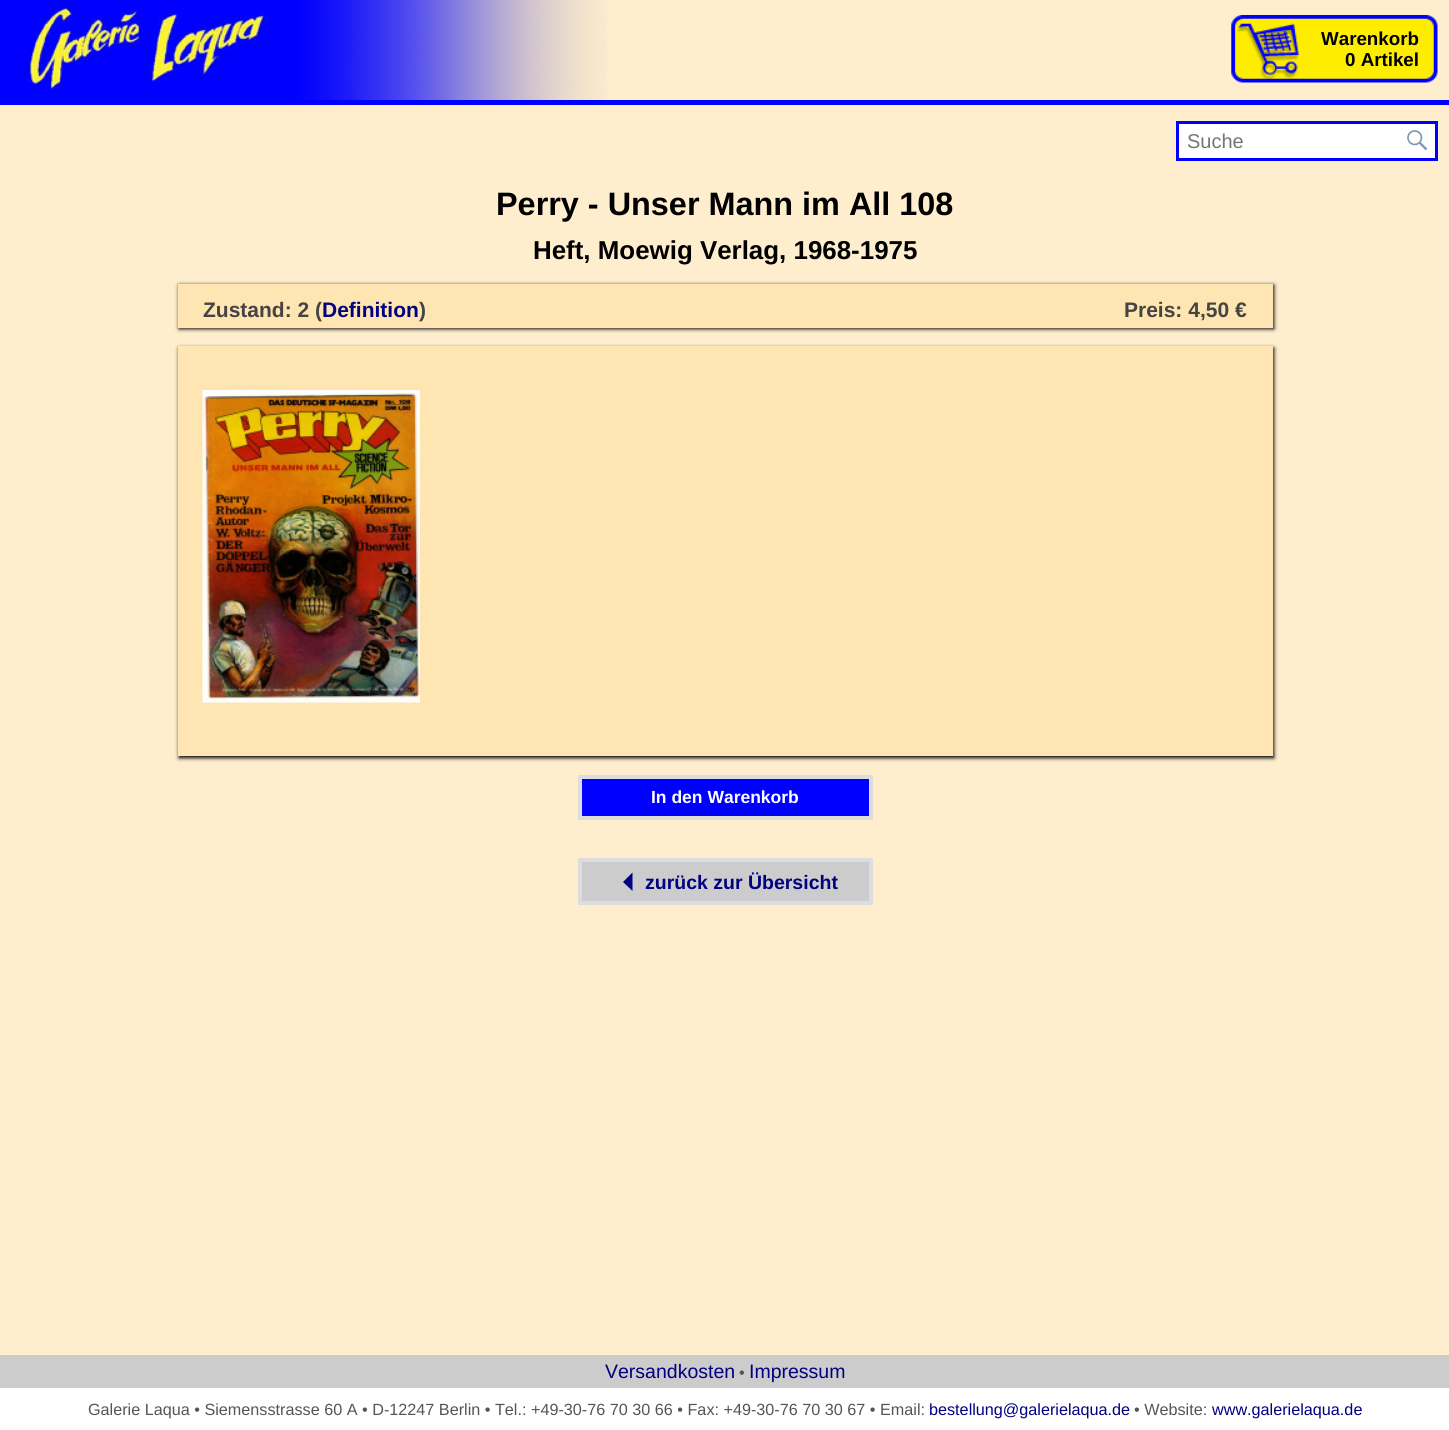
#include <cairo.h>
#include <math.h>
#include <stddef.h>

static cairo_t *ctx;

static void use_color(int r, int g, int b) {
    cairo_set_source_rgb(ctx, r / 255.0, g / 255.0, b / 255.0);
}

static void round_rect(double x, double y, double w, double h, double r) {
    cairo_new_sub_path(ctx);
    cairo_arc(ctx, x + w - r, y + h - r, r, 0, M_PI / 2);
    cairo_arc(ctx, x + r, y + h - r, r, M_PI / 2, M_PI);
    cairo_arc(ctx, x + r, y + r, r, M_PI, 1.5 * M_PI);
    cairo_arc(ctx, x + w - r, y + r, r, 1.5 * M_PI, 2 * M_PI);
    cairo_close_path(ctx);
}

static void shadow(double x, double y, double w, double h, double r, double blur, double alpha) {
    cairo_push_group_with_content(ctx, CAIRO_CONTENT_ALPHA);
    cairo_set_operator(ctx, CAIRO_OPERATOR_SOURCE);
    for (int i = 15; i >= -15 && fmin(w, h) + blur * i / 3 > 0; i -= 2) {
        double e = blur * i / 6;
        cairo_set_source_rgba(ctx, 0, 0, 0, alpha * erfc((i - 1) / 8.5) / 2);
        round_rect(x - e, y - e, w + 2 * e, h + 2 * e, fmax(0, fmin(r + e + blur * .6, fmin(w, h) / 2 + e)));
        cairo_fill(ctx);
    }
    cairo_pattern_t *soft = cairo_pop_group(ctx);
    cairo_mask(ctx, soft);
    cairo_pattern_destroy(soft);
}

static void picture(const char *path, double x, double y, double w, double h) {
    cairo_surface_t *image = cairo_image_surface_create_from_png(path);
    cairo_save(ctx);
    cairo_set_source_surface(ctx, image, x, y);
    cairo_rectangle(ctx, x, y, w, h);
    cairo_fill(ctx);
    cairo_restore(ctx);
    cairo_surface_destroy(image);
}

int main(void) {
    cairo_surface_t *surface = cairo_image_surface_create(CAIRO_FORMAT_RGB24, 1449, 1430);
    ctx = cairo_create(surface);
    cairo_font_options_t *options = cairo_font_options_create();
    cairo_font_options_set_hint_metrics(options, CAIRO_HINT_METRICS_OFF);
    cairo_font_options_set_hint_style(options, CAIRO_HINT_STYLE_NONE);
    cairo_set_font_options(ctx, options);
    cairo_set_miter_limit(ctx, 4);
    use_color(254, 238, 206);
    cairo_paint(ctx);
    picture("img1.png", 0, 0, 607, 100);
    use_color(0, 0, 254);
    cairo_rectangle(ctx, 0, 100, 1449, 5);
    cairo_fill(ctx);
    picture("img2.png", 1231, 15, 207, 68);
    cairo_select_font_face(ctx, "Liberation Sans", CAIRO_FONT_SLANT_NORMAL, CAIRO_FONT_WEIGHT_BOLD);
    cairo_set_font_size(ctx, 18.75);
    use_color(0, 0, 0);
    cairo_move_to(ctx, 1321, 45);
    cairo_show_text(ctx, "Warenkorb");
    cairo_move_to(ctx, 1345, 66);
    cairo_show_text(ctx, "0 Artikel");
    use_color(255, 255, 255);
    cairo_rectangle(ctx, 1177.5, 122.5, 259, 37);
    cairo_fill_preserve(ctx);
    use_color(0, 0, 254);
    cairo_set_line_width(ctx, 3);
    cairo_stroke(ctx);
    cairo_select_font_face(ctx, "Liberation Sans", CAIRO_FONT_SLANT_NORMAL, CAIRO_FONT_WEIGHT_NORMAL);
    cairo_set_font_size(ctx, 20);
    use_color(117, 117, 117);
    cairo_move_to(ctx, 1187, 148);
    cairo_show_text(ctx, "Suche");
    picture("img3.png", 1407, 130, 21, 21);
    cairo_select_font_face(ctx, "Liberation Sans", CAIRO_FONT_SLANT_NORMAL, CAIRO_FONT_WEIGHT_BOLD);
    cairo_set_font_size(ctx, 32.4);
    use_color(0, 0, 0);
    cairo_move_to(ctx, 496, 215);
    cairo_show_text(ctx, "Perry - Unser Mann im All 108");
    cairo_set_font_size(ctx, 25.9);
    cairo_move_to(ctx, 533, 259);
    cairo_show_text(ctx, "Heft, Moewig Verlag, 1968-1975");
    use_color(0, 0, 0);
    shadow(179, 285, 1095, 44, 0, 2, 1);
    use_color(255, 229, 177);
    cairo_rectangle(ctx, 178, 284, 1095, 44);
    cairo_fill(ctx);
    cairo_set_font_size(ctx, 21);
    use_color(68, 68, 68);
    cairo_move_to(ctx, 203, 317);
    cairo_show_text(ctx, "Zustand: 2 (");
    use_color(0, 0, 128);
    cairo_move_to(ctx, 322, 317);
    cairo_show_text(ctx, "Definition");
    use_color(68, 68, 68);
    cairo_move_to(ctx, 419, 317);
    cairo_show_text(ctx, ")");
    cairo_move_to(ctx, 1124, 317);
    cairo_show_text(ctx, "Preis: 4,50 €");
    use_color(0, 0, 0);
    shadow(179, 348, 1095, 410, 0, 2, 1);
    use_color(255, 229, 177);
    cairo_rectangle(ctx, 178, 346, 1095, 410);
    cairo_fill(ctx);
    picture("img4.png", 202, 390, 218, 313);
    use_color(0, 0, 254);
    cairo_rectangle(ctx, 580, 777, 291, 41);
    cairo_fill_preserve(ctx);
    use_color(221, 221, 221);
    cairo_set_line_width(ctx, 4);
    cairo_stroke(ctx);
    cairo_set_font_size(ctx, 17.5);
    use_color(255, 255, 255);
    cairo_move_to(ctx, 651, 803);
    cairo_show_text(ctx, "In den Warenkorb");
    use_color(204, 204, 204);
    cairo_rectangle(ctx, 580, 860, 291, 43);
    cairo_fill_preserve(ctx);
    use_color(221, 221, 221);
    cairo_stroke(ctx);
    use_color(0, 0, 128);
    cairo_new_path(ctx);
    cairo_move_to(ctx, 632.5, 872.5);
    cairo_line_to(ctx, 632.5, 891);
    cairo_line_to(ctx, 623, 882);
    cairo_close_path(ctx);
    cairo_fill(ctx);
    cairo_set_font_size(ctx, 19.5);
    cairo_move_to(ctx, 645, 889);
    cairo_show_text(ctx, "zurück zur Übersicht");
    use_color(255, 255, 255);
    cairo_rectangle(ctx, 0, 1388, 1449, 42);
    cairo_fill(ctx);
    use_color(204, 204, 204);
    cairo_rectangle(ctx, 0, 1355, 1449, 33);
    cairo_fill(ctx);
    cairo_select_font_face(ctx, "Liberation Sans", CAIRO_FONT_SLANT_NORMAL, CAIRO_FONT_WEIGHT_NORMAL);
    use_color(0, 0, 128);
    cairo_move_to(ctx, 605, 1378);
    cairo_show_text(ctx, "Versandkosten");
    cairo_set_font_size(ctx, 16.2);
    use_color(85, 85, 85);
    cairo_move_to(ctx, 739, 1378);
    cairo_show_text(ctx, "•");
    cairo_set_font_size(ctx, 19.5);
    use_color(0, 0, 128);
    cairo_move_to(ctx, 749, 1378);
    cairo_show_text(ctx, "Impressum");
    cairo_set_font_size(ctx, 16.2);
    use_color(85, 85, 85);
    cairo_move_to(ctx, 88, 1415);
    cairo_show_text(ctx, "Galerie Laqua • Siemensstrasse 60 A • D-12247 Berlin • Tel.: +49-30-76 70 30 66 • Fax: +49-30-76 70 30 67 • Email:");
    use_color(0, 0, 128);
    cairo_move_to(ctx, 929, 1415);
    cairo_show_text(ctx, "bestellung@galerielaqua.de");
    use_color(85, 85, 85);
    cairo_move_to(ctx, 1134, 1415);
    cairo_show_text(ctx, "• Website:");
    use_color(0, 0, 128);
    cairo_move_to(ctx, 1212, 1415);
    cairo_show_text(ctx, "www.galerielaqua.de");
    cairo_surface_write_to_png(surface, "result.png");
    cairo_font_options_destroy(options);
    cairo_destroy(ctx);
    cairo_surface_destroy(surface);
    return 0;
}
